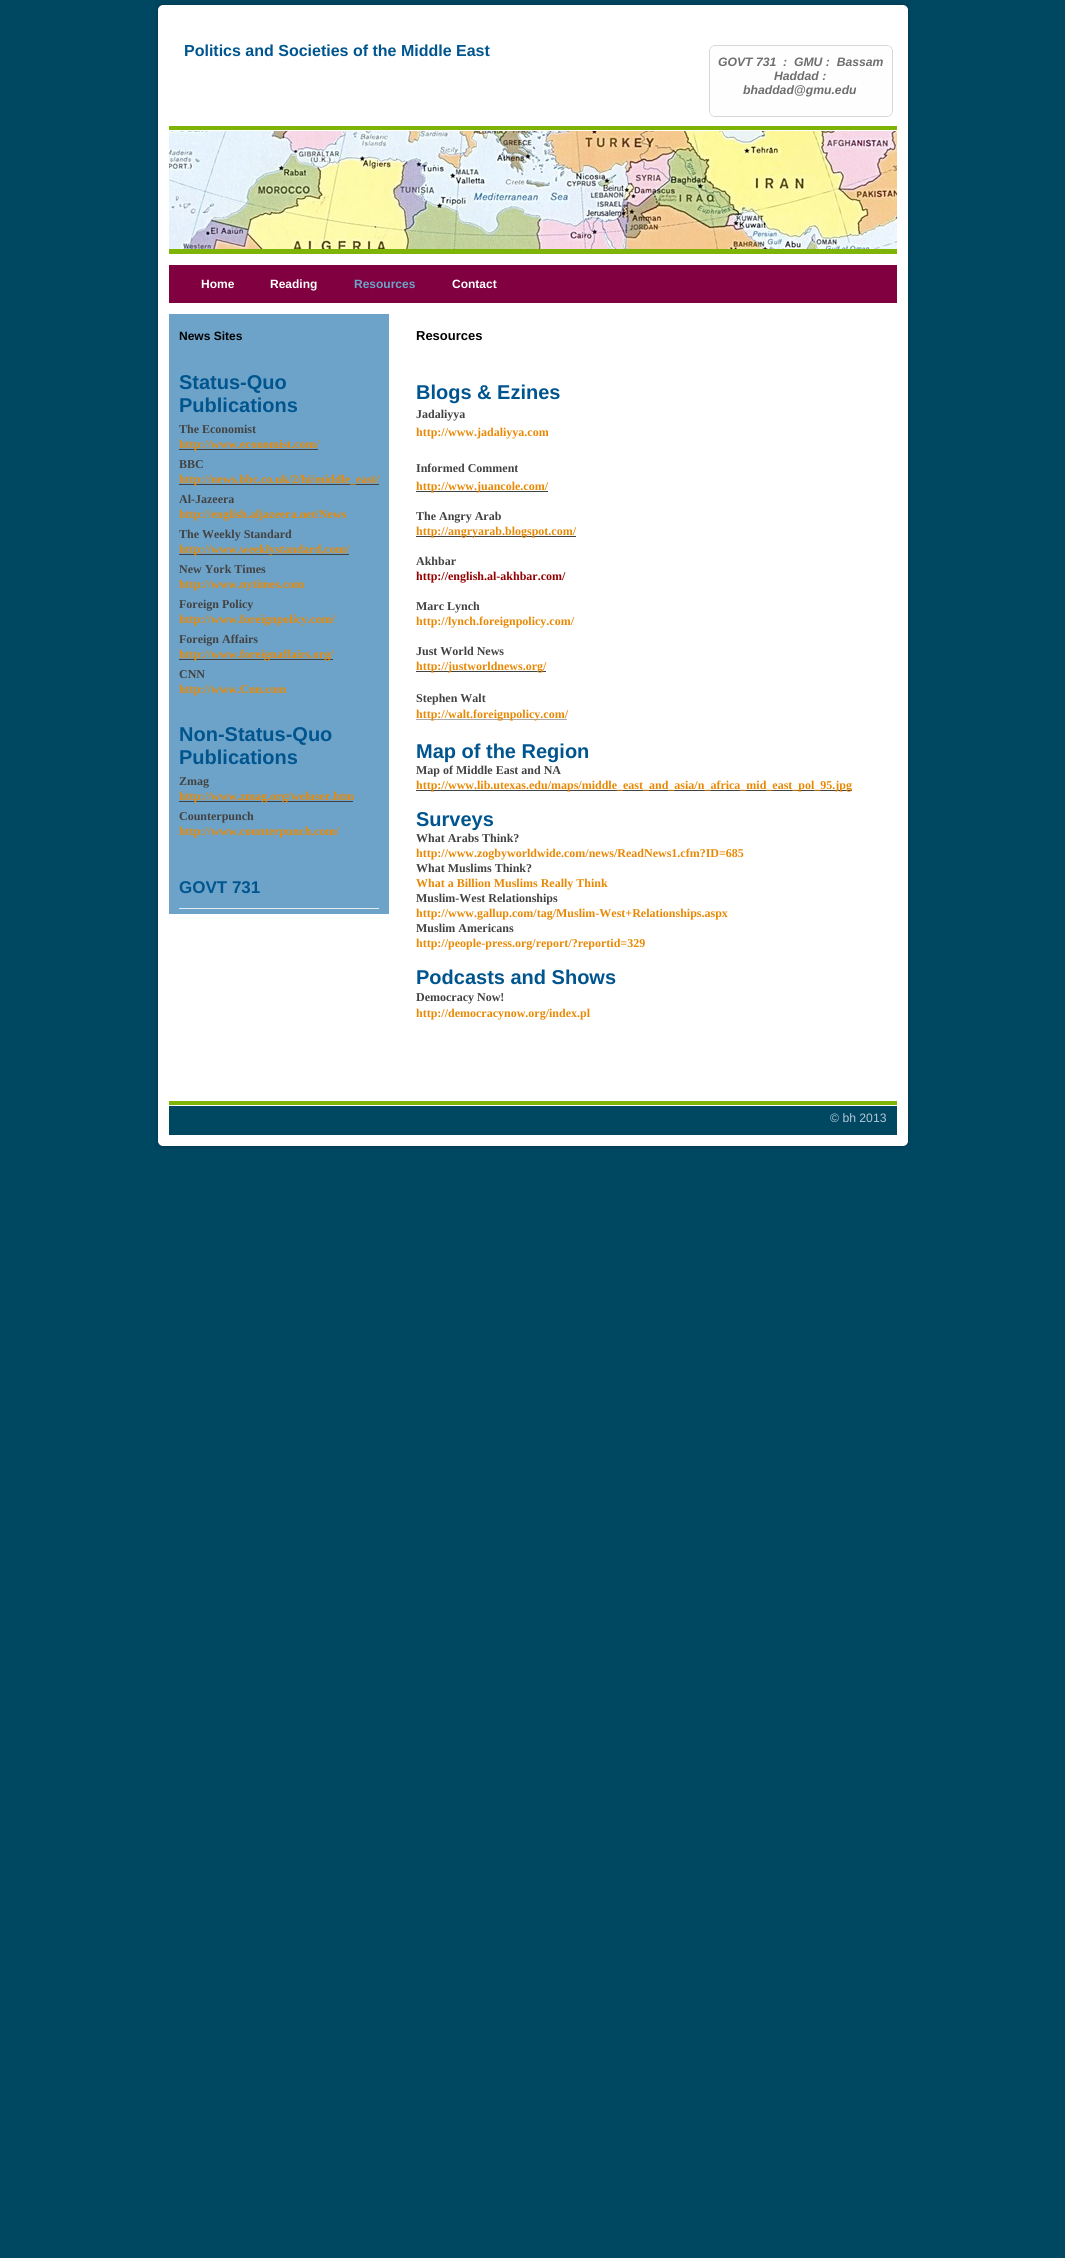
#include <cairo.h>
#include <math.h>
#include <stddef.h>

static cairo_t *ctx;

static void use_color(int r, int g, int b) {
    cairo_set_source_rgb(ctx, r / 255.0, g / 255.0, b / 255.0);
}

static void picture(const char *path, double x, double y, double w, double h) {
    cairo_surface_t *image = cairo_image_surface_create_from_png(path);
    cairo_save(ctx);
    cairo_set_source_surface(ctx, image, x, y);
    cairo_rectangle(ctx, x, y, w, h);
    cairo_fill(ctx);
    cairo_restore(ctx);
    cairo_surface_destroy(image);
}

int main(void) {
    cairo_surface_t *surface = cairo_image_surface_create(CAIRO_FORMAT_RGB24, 1065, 2258);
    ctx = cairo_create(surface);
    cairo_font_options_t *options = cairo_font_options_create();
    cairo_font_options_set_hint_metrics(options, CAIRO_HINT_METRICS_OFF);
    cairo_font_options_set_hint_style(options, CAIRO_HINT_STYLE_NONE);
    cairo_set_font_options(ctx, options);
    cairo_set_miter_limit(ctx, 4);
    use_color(0, 71, 98);
    cairo_paint(ctx);
    picture("img1.png", 155, 0, 756, 1150);
    picture("img2.png", 157, 0, 752, 9);
    use_color(125, 180, 5);
    cairo_rectangle(ctx, 169, 126, 728, 4);
    cairo_fill(ctx);
    cairo_select_font_face(ctx, "Liberation Sans", CAIRO_FONT_SLANT_NORMAL, CAIRO_FONT_WEIGHT_BOLD);
    cairo_set_font_size(ctx, 16);
    use_color(0, 85, 143);
    cairo_move_to(ctx, 184, 56);
    cairo_show_text(ctx, "Politics and Societies of the Middle East");
    picture("img3.png", 709, 45, 184, 72);
    cairo_select_font_face(ctx, "Liberation Sans", CAIRO_FONT_SLANT_ITALIC, CAIRO_FONT_WEIGHT_BOLD);
    cairo_set_font_size(ctx, 12.2);
    use_color(110, 110, 110);
    cairo_move_to(ctx, 718, 66);
    cairo_show_text(ctx, "GOVT 731  :  GMU :  Bassam");
    cairo_move_to(ctx, 774, 80);
    cairo_show_text(ctx, "Haddad :");
    cairo_move_to(ctx, 743, 94);
    cairo_show_text(ctx, "bhaddad@gmu.edu");
    picture("img4.png", 169, 131, 728, 118);
    use_color(125, 180, 5);
    cairo_rectangle(ctx, 169, 249, 728, 5);
    cairo_fill(ctx);
    use_color(128, 0, 64);
    cairo_rectangle(ctx, 169, 265, 728, 38);
    cairo_fill(ctx);
    cairo_select_font_face(ctx, "Liberation Sans", CAIRO_FONT_SLANT_NORMAL, CAIRO_FONT_WEIGHT_BOLD);
    cairo_set_font_size(ctx, 12);
    use_color(255, 255, 255);
    cairo_move_to(ctx, 201, 288);
    cairo_show_text(ctx, "Home");
    cairo_move_to(ctx, 270, 288);
    cairo_show_text(ctx, "Reading");
    use_color(109, 163, 199);
    cairo_move_to(ctx, 354, 288);
    cairo_show_text(ctx, "Resources");
    use_color(255, 255, 255);
    cairo_move_to(ctx, 452, 288);
    cairo_show_text(ctx, "Contact");
    use_color(109, 163, 201);
    cairo_rectangle(ctx, 169, 314, 220, 600);
    cairo_fill(ctx);
    use_color(0, 0, 0);
    cairo_move_to(ctx, 179, 340);
    cairo_show_text(ctx, "News Sites");
    cairo_set_font_size(ctx, 20);
    use_color(0, 85, 143);
    cairo_move_to(ctx, 179, 389);
    cairo_show_text(ctx, "Status-Quo");
    cairo_move_to(ctx, 179, 412);
    cairo_show_text(ctx, "Publications");
    cairo_save(ctx);
    cairo_rectangle(ctx, 179, 422, 200, 30);
    cairo_clip(ctx);
    cairo_select_font_face(ctx, "Liberation Serif", CAIRO_FONT_SLANT_NORMAL, CAIRO_FONT_WEIGHT_BOLD);
    cairo_set_font_size(ctx, 12);
    use_color(66, 66, 66);
    cairo_move_to(ctx, 179, 433);
    cairo_show_text(ctx, "The Economist");
    cairo_restore(ctx);
    use_color(66, 66, 66);
    cairo_rectangle(ctx, 179, 449, 139, 1);
    cairo_fill(ctx);
    cairo_select_font_face(ctx, "Liberation Serif", CAIRO_FONT_SLANT_NORMAL, CAIRO_FONT_WEIGHT_BOLD);
    cairo_set_font_size(ctx, 12);
    use_color(232, 137, 6);
    cairo_move_to(ctx, 179, 448);
    cairo_show_text(ctx, "http://www.economist.com/");
    use_color(66, 66, 66);
    cairo_move_to(ctx, 179, 468);
    cairo_show_text(ctx, "BBC");
    cairo_rectangle(ctx, 179, 484, 200, 1);
    cairo_fill(ctx);
    use_color(232, 137, 6);
    cairo_move_to(ctx, 179, 483);
    cairo_show_text(ctx, "http://news.bbc.co.uk/2/hi/middle_east/");
    use_color(66, 66, 66);
    cairo_move_to(ctx, 179, 503);
    cairo_show_text(ctx, "Al-Jazeera");
    use_color(232, 137, 6);
    cairo_move_to(ctx, 179, 518);
    cairo_show_text(ctx, "http://english.aljazeera.net/News");
    cairo_save(ctx);
    cairo_rectangle(ctx, 179, 527, 200, 30);
    cairo_clip(ctx);
    use_color(66, 66, 66);
    cairo_move_to(ctx, 179, 538);
    cairo_show_text(ctx, "The Weekly Standard");
    cairo_restore(ctx);
    use_color(66, 66, 66);
    cairo_rectangle(ctx, 179, 554, 170, 1);
    cairo_fill(ctx);
    use_color(232, 137, 6);
    cairo_move_to(ctx, 179, 553);
    cairo_show_text(ctx, "http://www.weeklystandard.com/");
    use_color(66, 66, 66);
    cairo_move_to(ctx, 179, 573);
    cairo_show_text(ctx, "New York Times");
    use_color(232, 137, 6);
    cairo_move_to(ctx, 179, 588);
    cairo_show_text(ctx, "http://www.nytimes.com");
    use_color(66, 66, 66);
    cairo_move_to(ctx, 179, 608);
    cairo_show_text(ctx, "Foreign Policy");
    use_color(232, 137, 6);
    cairo_move_to(ctx, 179, 623);
    cairo_show_text(ctx, "http://www.foreignpolicy.com/");
    use_color(66, 66, 66);
    cairo_move_to(ctx, 179, 643);
    cairo_show_text(ctx, "Foreign Affairs");
    cairo_rectangle(ctx, 179, 659, 154, 1);
    cairo_fill(ctx);
    use_color(232, 137, 6);
    cairo_move_to(ctx, 179, 658);
    cairo_show_text(ctx, "http://www.foreignaffairs.org/");
    use_color(66, 66, 66);
    cairo_move_to(ctx, 179, 678);
    cairo_show_text(ctx, "CNN");
    use_color(232, 137, 6);
    cairo_move_to(ctx, 179, 693);
    cairo_show_text(ctx, "http://www.Cnn.com");
    cairo_select_font_face(ctx, "Liberation Sans", CAIRO_FONT_SLANT_NORMAL, CAIRO_FONT_WEIGHT_BOLD);
    cairo_set_font_size(ctx, 20);
    use_color(0, 85, 143);
    cairo_move_to(ctx, 179, 741);
    cairo_show_text(ctx, "Non-Status-Quo");
    cairo_move_to(ctx, 179, 764);
    cairo_show_text(ctx, "Publications");
    cairo_select_font_face(ctx, "Liberation Serif", CAIRO_FONT_SLANT_NORMAL, CAIRO_FONT_WEIGHT_BOLD);
    cairo_set_font_size(ctx, 12);
    use_color(66, 66, 66);
    cairo_move_to(ctx, 179, 785);
    cairo_show_text(ctx, "Zmag");
    cairo_rectangle(ctx, 179, 801, 174, 1);
    cairo_fill(ctx);
    use_color(232, 137, 6);
    cairo_move_to(ctx, 179, 800);
    cairo_show_text(ctx, "http://www.zmag.org/weluser.htm");
    use_color(66, 66, 66);
    cairo_move_to(ctx, 179, 820);
    cairo_show_text(ctx, "Counterpunch");
    use_color(232, 137, 6);
    cairo_move_to(ctx, 179, 835);
    cairo_show_text(ctx, "http://www.counterpunch.com/");
    use_color(223, 237, 246);
    cairo_rectangle(ctx, 179, 908, 200, 1);
    cairo_fill(ctx);
    cairo_select_font_face(ctx, "Liberation Sans", CAIRO_FONT_SLANT_NORMAL, CAIRO_FONT_WEIGHT_BOLD);
    cairo_set_font_size(ctx, 17);
    use_color(0, 85, 143);
    cairo_move_to(ctx, 179, 893);
    cairo_show_text(ctx, "GOVT 731");
    cairo_set_font_size(ctx, 13);
    use_color(0, 0, 0);
    cairo_move_to(ctx, 416, 340);
    cairo_show_text(ctx, "Resources");
    cairo_set_font_size(ctx, 20);
    use_color(0, 85, 143);
    cairo_move_to(ctx, 416, 399);
    cairo_show_text(ctx, "Blogs & Ezines");
    cairo_select_font_face(ctx, "Liberation Serif", CAIRO_FONT_SLANT_NORMAL, CAIRO_FONT_WEIGHT_BOLD);
    cairo_set_font_size(ctx, 12);
    use_color(66, 66, 66);
    cairo_move_to(ctx, 416, 418);
    cairo_show_text(ctx, "Jadaliyya");
    use_color(232, 137, 6);
    cairo_move_to(ctx, 416, 436);
    cairo_show_text(ctx, "http://www.jadaliyya.com");
    use_color(66, 66, 66);
    cairo_move_to(ctx, 416, 472);
    cairo_show_text(ctx, "Informed Comment");
    cairo_rectangle(ctx, 416, 491, 132, 1);
    cairo_fill(ctx);
    use_color(232, 137, 6);
    cairo_move_to(ctx, 416, 490);
    cairo_show_text(ctx, "http://www.juancole.com/");
    use_color(66, 66, 66);
    cairo_move_to(ctx, 416, 520);
    cairo_show_text(ctx, "The Angry Arab");
    cairo_rectangle(ctx, 416, 536, 160, 1);
    cairo_fill(ctx);
    use_color(232, 137, 6);
    cairo_move_to(ctx, 416, 535);
    cairo_show_text(ctx, "http://angryarab.blogspot.com/");
    use_color(66, 66, 66);
    cairo_move_to(ctx, 416, 565);
    cairo_show_text(ctx, "Akhbar");
    use_color(147, 0, 0);
    cairo_move_to(ctx, 416, 580);
    cairo_show_text(ctx, "http://english.al-akhbar.com/");
    use_color(66, 66, 66);
    cairo_move_to(ctx, 416, 610);
    cairo_show_text(ctx, "Marc Lynch");
    use_color(232, 137, 6);
    cairo_move_to(ctx, 416, 625);
    cairo_show_text(ctx, "http://lynch.foreignpolicy.com/");
    use_color(66, 66, 66);
    cairo_move_to(ctx, 416, 655);
    cairo_show_text(ctx, "Just World News");
    cairo_rectangle(ctx, 416, 671, 130, 1);
    cairo_fill(ctx);
    use_color(232, 137, 6);
    cairo_move_to(ctx, 416, 670);
    cairo_show_text(ctx, "http://justworldnews.org/");
    use_color(66, 66, 66);
    cairo_move_to(ctx, 416, 702);
    cairo_show_text(ctx, "Stephen Walt");
    use_color(169, 169, 169);
    cairo_rectangle(ctx, 416, 719, 151, 1);
    cairo_fill(ctx);
    use_color(232, 137, 6);
    cairo_move_to(ctx, 416, 718);
    cairo_show_text(ctx, "http://walt.foreignpolicy.com/");
    cairo_select_font_face(ctx, "Liberation Sans", CAIRO_FONT_SLANT_NORMAL, CAIRO_FONT_WEIGHT_BOLD);
    cairo_set_font_size(ctx, 20);
    use_color(0, 85, 143);
    cairo_move_to(ctx, 416, 758);
    cairo_show_text(ctx, "Map of the Region");
    cairo_select_font_face(ctx, "Liberation Serif", CAIRO_FONT_SLANT_NORMAL, CAIRO_FONT_WEIGHT_BOLD);
    cairo_set_font_size(ctx, 12);
    use_color(66, 66, 66);
    cairo_move_to(ctx, 416, 774);
    cairo_show_text(ctx, "Map of Middle East and NA");
    cairo_rectangle(ctx, 416, 790, 436, 1);
    cairo_fill(ctx);
    use_color(232, 137, 6);
    cairo_move_to(ctx, 416, 789);
    cairo_show_text(ctx, "http://www.lib.utexas.edu/maps/middle_east_and_asia/n_africa_mid_east_pol_95.jpg");
    cairo_select_font_face(ctx, "Liberation Sans", CAIRO_FONT_SLANT_NORMAL, CAIRO_FONT_WEIGHT_BOLD);
    cairo_set_font_size(ctx, 20);
    use_color(0, 85, 143);
    cairo_move_to(ctx, 416, 826);
    cairo_show_text(ctx, "Surveys");
    cairo_select_font_face(ctx, "Liberation Serif", CAIRO_FONT_SLANT_NORMAL, CAIRO_FONT_WEIGHT_BOLD);
    cairo_set_font_size(ctx, 12);
    use_color(66, 66, 66);
    cairo_move_to(ctx, 416, 842);
    cairo_show_text(ctx, "What Arabs Think?");
    use_color(232, 137, 6);
    cairo_move_to(ctx, 416, 857);
    cairo_show_text(ctx, "http://www.zogbyworldwide.com/news/ReadNews1.cfm?ID=685");
    use_color(66, 66, 66);
    cairo_move_to(ctx, 416, 872);
    cairo_show_text(ctx, "What Muslims Think?");
    use_color(232, 137, 6);
    cairo_move_to(ctx, 416, 887);
    cairo_show_text(ctx, "What a Billion Muslims Really Think");
    use_color(66, 66, 66);
    cairo_move_to(ctx, 416, 902);
    cairo_show_text(ctx, "Muslim-West Relationships");
    use_color(232, 137, 6);
    cairo_move_to(ctx, 416, 917);
    cairo_show_text(ctx, "http://www.gallup.com/tag/Muslim-West+Relationships.aspx");
    use_color(66, 66, 66);
    cairo_move_to(ctx, 416, 932);
    cairo_show_text(ctx, "Muslim Americans");
    use_color(232, 137, 6);
    cairo_move_to(ctx, 416, 947);
    cairo_show_text(ctx, "http://people-press.org/report/?reportid=329");
    cairo_select_font_face(ctx, "Liberation Sans", CAIRO_FONT_SLANT_NORMAL, CAIRO_FONT_WEIGHT_BOLD);
    cairo_set_font_size(ctx, 20);
    use_color(0, 85, 143);
    cairo_move_to(ctx, 416, 984);
    cairo_show_text(ctx, "Podcasts and Shows");
    cairo_select_font_face(ctx, "Liberation Serif", CAIRO_FONT_SLANT_NORMAL, CAIRO_FONT_WEIGHT_BOLD);
    cairo_set_font_size(ctx, 12);
    use_color(66, 66, 66);
    cairo_move_to(ctx, 416, 1001);
    cairo_show_text(ctx, "Democracy Now!");
    use_color(232, 137, 6);
    cairo_move_to(ctx, 416, 1017);
    cairo_show_text(ctx, "http://democracynow.org/index.pl");
    picture("img5.png", 157, 1142, 752, 8);
    picture("img6.png", 169, 1101, 728, 34);
    cairo_select_font_face(ctx, "Liberation Sans", CAIRO_FONT_SLANT_NORMAL, CAIRO_FONT_WEIGHT_NORMAL);
    cairo_set_font_size(ctx, 12.2);
    use_color(181, 199, 215);
    cairo_move_to(ctx, 830, 1122);
    cairo_show_text(ctx, "© bh 2013");
    cairo_surface_write_to_png(surface, "result.png");
    cairo_font_options_destroy(options);
    cairo_destroy(ctx);
    cairo_surface_destroy(surface);
    return 0;
}
